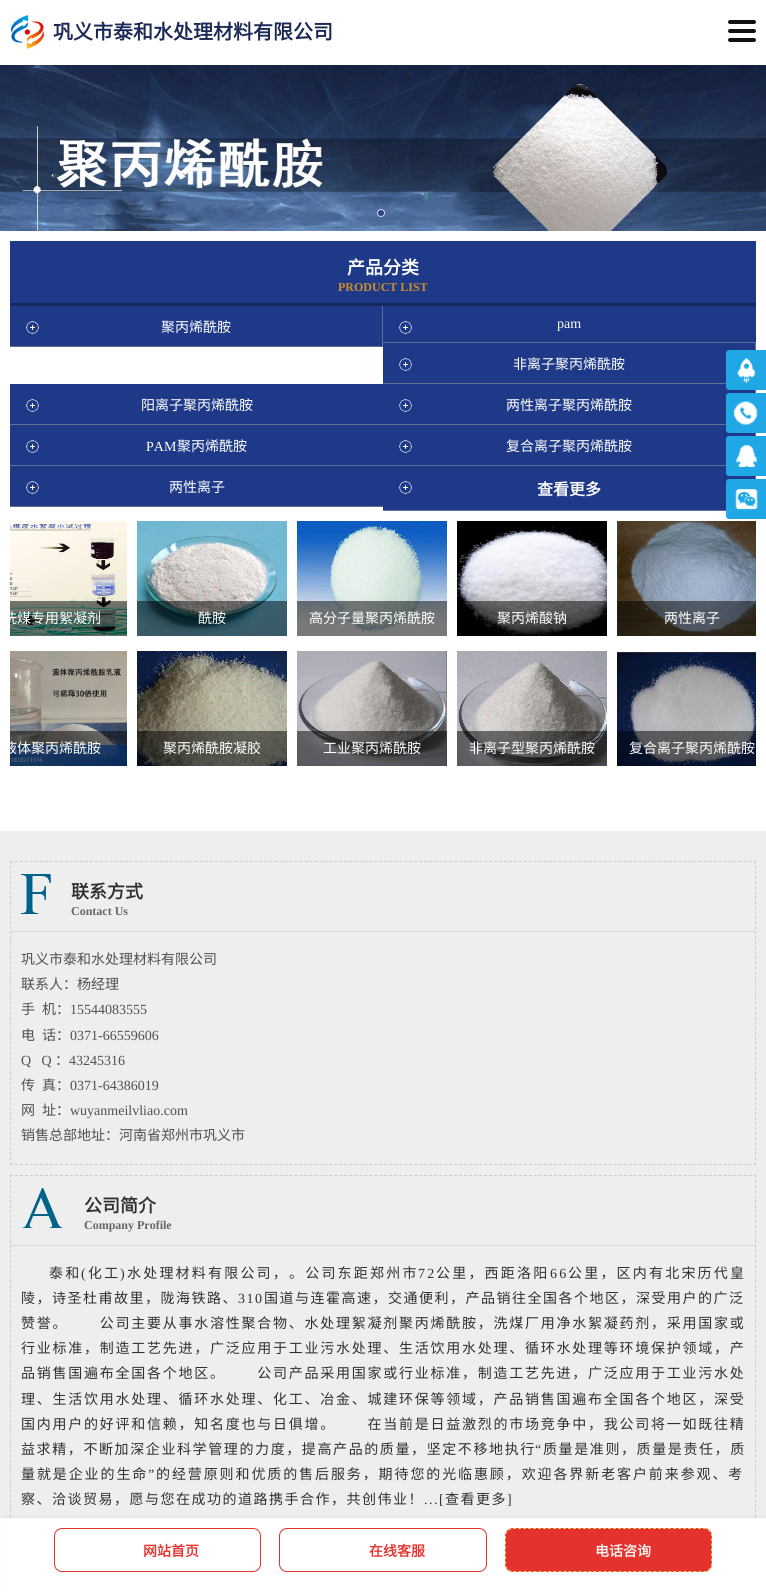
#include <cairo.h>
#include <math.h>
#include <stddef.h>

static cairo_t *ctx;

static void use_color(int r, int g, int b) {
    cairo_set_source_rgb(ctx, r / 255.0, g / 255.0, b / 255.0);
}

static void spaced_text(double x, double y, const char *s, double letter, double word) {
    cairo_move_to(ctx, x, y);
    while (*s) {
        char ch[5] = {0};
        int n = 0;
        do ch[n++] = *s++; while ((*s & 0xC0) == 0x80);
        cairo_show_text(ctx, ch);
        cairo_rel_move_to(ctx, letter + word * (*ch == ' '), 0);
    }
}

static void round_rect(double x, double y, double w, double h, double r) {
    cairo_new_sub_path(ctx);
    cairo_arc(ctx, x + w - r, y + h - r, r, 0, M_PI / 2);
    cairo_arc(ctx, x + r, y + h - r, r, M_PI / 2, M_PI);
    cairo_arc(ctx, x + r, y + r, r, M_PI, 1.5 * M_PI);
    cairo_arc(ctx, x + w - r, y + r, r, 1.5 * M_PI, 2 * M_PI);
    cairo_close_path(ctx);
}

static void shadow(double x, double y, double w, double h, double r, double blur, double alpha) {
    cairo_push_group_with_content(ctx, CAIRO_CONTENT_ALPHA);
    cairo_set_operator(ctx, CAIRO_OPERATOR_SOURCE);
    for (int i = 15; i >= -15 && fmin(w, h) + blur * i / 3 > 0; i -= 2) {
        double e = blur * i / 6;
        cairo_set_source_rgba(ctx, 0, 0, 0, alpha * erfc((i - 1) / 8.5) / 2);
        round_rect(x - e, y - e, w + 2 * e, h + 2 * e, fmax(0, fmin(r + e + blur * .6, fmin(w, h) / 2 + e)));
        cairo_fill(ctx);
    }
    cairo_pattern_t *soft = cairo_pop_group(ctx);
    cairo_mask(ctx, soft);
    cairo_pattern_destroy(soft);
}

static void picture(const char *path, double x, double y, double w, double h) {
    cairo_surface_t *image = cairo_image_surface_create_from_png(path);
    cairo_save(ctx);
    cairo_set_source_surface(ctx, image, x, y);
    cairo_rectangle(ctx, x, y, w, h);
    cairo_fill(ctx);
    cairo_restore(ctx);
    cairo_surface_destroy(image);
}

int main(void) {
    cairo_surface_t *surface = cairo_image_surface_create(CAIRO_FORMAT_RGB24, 766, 1593);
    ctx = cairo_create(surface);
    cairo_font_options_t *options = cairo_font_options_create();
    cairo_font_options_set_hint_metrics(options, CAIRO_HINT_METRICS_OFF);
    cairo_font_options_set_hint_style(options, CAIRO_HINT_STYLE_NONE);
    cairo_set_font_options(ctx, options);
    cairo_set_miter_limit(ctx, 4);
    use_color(255, 255, 255);
    cairo_paint(ctx);
    picture("img1.png", 11, 15, 33, 34);
    cairo_select_font_face(ctx, "Noto Sans CJK SC", CAIRO_FONT_SLANT_NORMAL, CAIRO_FONT_WEIGHT_BOLD);
    cairo_set_font_size(ctx, 20);
    use_color(28, 41, 86);
    cairo_move_to(ctx, 53, 39);
    cairo_show_text(ctx, "巩义市泰和水处理材料有限公司");
    use_color(17, 17, 17);
    round_rect(728, 20, 28, 4, 2);
    cairo_fill(ctx);
    round_rect(728, 29, 28, 4, 2);
    cairo_fill(ctx);
    round_rect(728, 38, 28, 4, 2);
    cairo_fill(ctx);
    picture("img2.png", 0, 65, 766, 166);
    cairo_set_source_rgba(ctx, 0.118, 0.224, 0.533, 0.8);
    cairo_arc(ctx, 381, 213, 4, 0, 2 * M_PI);
    cairo_fill(ctx);
    cairo_arc(ctx, 381, 213, 3.5, 0, 2 * M_PI);
    cairo_set_source_rgba(ctx, 1, 1, 1, 0.8);
    cairo_set_line_width(ctx, 1);
    cairo_stroke(ctx);
    use_color(30, 57, 136);
    cairo_rectangle(ctx, 10, 241, 746, 62);
    cairo_fill(ctx);
    use_color(21, 40, 95);
    cairo_rectangle(ctx, 10, 303, 746, 3);
    cairo_fill(ctx);
    cairo_set_font_size(ctx, 18);
    use_color(255, 255, 255);
    cairo_move_to(ctx, 347, 274);
    cairo_show_text(ctx, "产品分类");
    cairo_select_font_face(ctx, "Liberation Serif", CAIRO_FONT_SLANT_NORMAL, CAIRO_FONT_WEIGHT_BOLD);
    cairo_set_font_size(ctx, 12);
    use_color(205, 142, 44);
    cairo_move_to(ctx, 338, 291);
    cairo_show_text(ctx, "PRODUCT LIST");
    use_color(30, 57, 136);
    cairo_rectangle(ctx, 10, 306, 372, 40);
    cairo_fill(ctx);
    use_color(98, 111, 148);
    cairo_rectangle(ctx, 382, 306, 1, 41);
    cairo_fill(ctx);
    cairo_rectangle(ctx, 10, 346, 373, 1);
    cairo_fill(ctx);
    picture("img3.png", 26, 321, 13, 13);
    cairo_select_font_face(ctx, "Noto Sans CJK SC", CAIRO_FONT_SLANT_NORMAL, CAIRO_FONT_WEIGHT_NORMAL);
    cairo_set_font_size(ctx, 14);
    use_color(255, 255, 255);
    cairo_move_to(ctx, 161, 332);
    cairo_show_text(ctx, "聚丙烯酰胺");
    use_color(30, 57, 136);
    cairo_rectangle(ctx, 383, 306, 373, 36);
    cairo_fill(ctx);
    use_color(98, 111, 148);
    cairo_rectangle(ctx, 383, 342, 373, 1);
    cairo_fill(ctx);
    picture("img4.png", 399, 321, 13, 13);
    cairo_select_font_face(ctx, "Liberation Serif", CAIRO_FONT_SLANT_NORMAL, CAIRO_FONT_WEIGHT_NORMAL);
    use_color(255, 255, 255);
    cairo_move_to(ctx, 557, 328);
    cairo_show_text(ctx, "pam");
    use_color(30, 57, 136);
    cairo_rectangle(ctx, 383, 343, 372, 40);
    cairo_fill(ctx);
    use_color(98, 111, 148);
    cairo_rectangle(ctx, 755, 343, 1, 7);
    cairo_fill(ctx);
    cairo_rectangle(ctx, 383, 383, 343, 1);
    cairo_fill(ctx);
    picture("img4.png", 399, 358, 13, 13);
    cairo_select_font_face(ctx, "Noto Sans CJK SC", CAIRO_FONT_SLANT_NORMAL, CAIRO_FONT_WEIGHT_NORMAL);
    use_color(255, 255, 255);
    cairo_move_to(ctx, 513, 369);
    cairo_show_text(ctx, "非离子聚丙烯酰胺");
    use_color(30, 57, 136);
    cairo_rectangle(ctx, 10, 384, 745, 40);
    cairo_fill(ctx);
    use_color(98, 111, 148);
    cairo_rectangle(ctx, 10, 424, 716, 1);
    cairo_fill(ctx);
    picture("img3.png", 26, 399, 13, 13);
    use_color(255, 255, 255);
    cairo_move_to(ctx, 141, 410);
    cairo_show_text(ctx, "阳离子聚丙烯酰胺");
    use_color(98, 111, 148);
    cairo_rectangle(ctx, 755, 384, 1, 9);
    cairo_fill(ctx);
    picture("img4.png", 399, 399, 13, 13);
    use_color(255, 255, 255);
    cairo_move_to(ctx, 506, 410);
    cairo_show_text(ctx, "两性离子聚丙烯酰胺");
    use_color(30, 57, 136);
    cairo_rectangle(ctx, 10, 425, 745, 40);
    cairo_fill(ctx);
    use_color(98, 111, 148);
    cairo_rectangle(ctx, 10, 465, 716, 1);
    cairo_fill(ctx);
    picture("img3.png", 26, 440, 13, 13);
    cairo_select_font_face(ctx, "Liberation Serif", CAIRO_FONT_SLANT_NORMAL, CAIRO_FONT_WEIGHT_NORMAL);
    use_color(255, 255, 255);
    cairo_move_to(ctx, 146, 451);
    cairo_show_text(ctx, "PAM");
    cairo_select_font_face(ctx, "Noto Sans CJK SC", CAIRO_FONT_SLANT_NORMAL, CAIRO_FONT_WEIGHT_NORMAL);
    cairo_move_to(ctx, 177, 451);
    cairo_show_text(ctx, "聚丙烯酰胺");
    use_color(98, 111, 148);
    cairo_rectangle(ctx, 755, 425, 1, 11);
    cairo_fill(ctx);
    picture("img4.png", 399, 440, 13, 13);
    use_color(255, 255, 255);
    cairo_move_to(ctx, 506, 451);
    cairo_show_text(ctx, "复合离子聚丙烯酰胺");
    use_color(30, 57, 136);
    cairo_rectangle(ctx, 10, 466, 373, 40);
    cairo_fill(ctx);
    use_color(98, 111, 148);
    cairo_rectangle(ctx, 10, 506, 373, 1);
    cairo_fill(ctx);
    picture("img3.png", 26, 481, 13, 13);
    use_color(255, 255, 255);
    cairo_move_to(ctx, 169, 492);
    cairo_show_text(ctx, "两性离子");
    use_color(30, 57, 136);
    cairo_rectangle(ctx, 383, 466, 372, 44);
    cairo_fill(ctx);
    use_color(98, 111, 148);
    cairo_rectangle(ctx, 755, 476, 1, 3);
    cairo_fill(ctx);
    cairo_rectangle(ctx, 383, 510, 343, 1);
    cairo_fill(ctx);
    picture("img4.png", 399, 481, 13, 13);
    cairo_select_font_face(ctx, "Noto Sans CJK SC", CAIRO_FONT_SLANT_NORMAL, CAIRO_FONT_WEIGHT_BOLD);
    cairo_set_font_size(ctx, 16);
    use_color(255, 255, 255);
    cairo_move_to(ctx, 537, 495);
    cairo_show_text(ctx, "查看更多");
    picture("img5.png", 10, 521, 117, 115);
    cairo_set_source_rgba(ctx, 0, 0, 0, 0.5);
    cairo_rectangle(ctx, 10, 601, 117, 35);
    cairo_fill(ctx);
    cairo_save(ctx);
    cairo_rectangle(ctx, 10, 601, 117, 35);
    cairo_clip(ctx);
    cairo_select_font_face(ctx, "Noto Sans CJK SC", CAIRO_FONT_SLANT_NORMAL, CAIRO_FONT_WEIGHT_NORMAL);
    cairo_set_font_size(ctx, 14);
    use_color(255, 255, 255);
    cairo_move_to(ctx, 3, 623);
    cairo_show_text(ctx, "洗煤专用絮凝剂");
    cairo_restore(ctx);
    picture("img6.png", 10, 651, 117, 115);
    cairo_rectangle(ctx, 10, 731, 117, 35);
    cairo_fill(ctx);
    cairo_save(ctx);
    cairo_rectangle(ctx, 10, 731, 117, 35);
    cairo_clip(ctx);
    cairo_select_font_face(ctx, "Noto Sans CJK SC", CAIRO_FONT_SLANT_NORMAL, CAIRO_FONT_WEIGHT_NORMAL);
    cairo_set_font_size(ctx, 14);
    use_color(255, 255, 255);
    cairo_move_to(ctx, 3, 753);
    cairo_show_text(ctx, "液体聚丙烯酰胺");
    cairo_restore(ctx);
    picture("img7.png", 137, 521, 150, 115);
    cairo_rectangle(ctx, 137, 601, 150, 35);
    cairo_fill(ctx);
    cairo_select_font_face(ctx, "Noto Sans CJK SC", CAIRO_FONT_SLANT_NORMAL, CAIRO_FONT_WEIGHT_NORMAL);
    cairo_set_font_size(ctx, 14);
    use_color(255, 255, 255);
    cairo_move_to(ctx, 198, 623);
    cairo_show_text(ctx, "酰胺");
    picture("img8.png", 137, 651, 150, 115);
    cairo_set_source_rgba(ctx, 0, 0, 0, 0.5);
    cairo_rectangle(ctx, 137, 731, 150, 35);
    cairo_fill(ctx);
    use_color(255, 255, 255);
    cairo_move_to(ctx, 163, 753);
    cairo_show_text(ctx, "聚丙烯酰胺凝胶");
    picture("img9.png", 297, 521, 150, 115);
    cairo_set_source_rgba(ctx, 0, 0, 0, 0.5);
    cairo_rectangle(ctx, 297, 601, 150, 35);
    cairo_fill(ctx);
    use_color(255, 255, 255);
    cairo_move_to(ctx, 309, 623);
    cairo_show_text(ctx, "高分子量聚丙烯酰胺");
    picture("img10.png", 297, 651, 150, 115);
    cairo_set_source_rgba(ctx, 0, 0, 0, 0.5);
    cairo_rectangle(ctx, 297, 731, 150, 35);
    cairo_fill(ctx);
    use_color(255, 255, 255);
    cairo_move_to(ctx, 323, 753);
    cairo_show_text(ctx, "工业聚丙烯酰胺");
    picture("img11.png", 457, 521, 150, 115);
    cairo_set_source_rgba(ctx, 0, 0, 0, 0.5);
    cairo_rectangle(ctx, 462, 601, 145, 35);
    cairo_fill(ctx);
    use_color(255, 255, 255);
    cairo_move_to(ctx, 497, 623);
    cairo_show_text(ctx, "聚丙烯酸钠");
    picture("img12.png", 457, 651, 150, 115);
    cairo_set_source_rgba(ctx, 0, 0, 0, 0.5);
    cairo_rectangle(ctx, 457, 731, 150, 35);
    cairo_fill(ctx);
    use_color(255, 255, 255);
    cairo_move_to(ctx, 469, 753);
    cairo_show_text(ctx, "非离子型聚丙烯酰胺");
    picture("img13.png", 617, 521, 139, 115);
    cairo_set_source_rgba(ctx, 0, 0, 0, 0.5);
    cairo_rectangle(ctx, 617, 601, 139, 35);
    cairo_fill(ctx);
    use_color(255, 255, 255);
    cairo_move_to(ctx, 664, 623);
    cairo_show_text(ctx, "两性离子");
    picture("img14.png", 617, 651, 139, 115);
    cairo_set_source_rgba(ctx, 0, 0, 0, 0.5);
    cairo_rectangle(ctx, 617, 731, 139, 35);
    cairo_fill(ctx);
    use_color(255, 255, 255);
    cairo_move_to(ctx, 629, 753);
    cairo_show_text(ctx, "复合离子聚丙烯酰胺");
    use_color(32, 168, 230);
    round_rect(726, 350, 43, 40, 3);
    cairo_fill(ctx);
    picture("img15.png", 737, 358, 18, 25);
    round_rect(726, 393, 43, 40, 3);
    cairo_fill(ctx);
    picture("img16.png", 734, 401, 24, 24);
    round_rect(726, 436, 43, 40, 3);
    cairo_fill(ctx);
    picture("img17.png", 736, 445, 21, 22);
    round_rect(726, 479, 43, 40, 3);
    cairo_fill(ctx);
    picture("img18.png", 735, 489, 23, 21);
    use_color(238, 238, 238);
    cairo_rectangle(ctx, 0, 831, 766, 687);
    cairo_fill(ctx);
    cairo_new_path(ctx);
    cairo_move_to(ctx, 10, 861.5);
    cairo_line_to(ctx, 756, 861.5);
    use_color(204, 204, 204);
    cairo_set_dash(ctx, (double[]){3, 1.99}, 2, 0);
    cairo_stroke(ctx);
    cairo_new_path(ctx);
    cairo_move_to(ctx, 755.5, 861);
    cairo_line_to(ctx, 755.5, 1165);
    cairo_set_dash(ctx, (double[]){3, 2.02}, 2, 0);
    cairo_stroke(ctx);
    cairo_new_path(ctx);
    cairo_move_to(ctx, 10, 1164.5);
    cairo_line_to(ctx, 756, 1164.5);
    cairo_set_dash(ctx, (double[]){3, 1.99}, 2, 0);
    cairo_stroke(ctx);
    cairo_new_path(ctx);
    cairo_move_to(ctx, 10.5, 861);
    cairo_line_to(ctx, 10.5, 1165);
    cairo_set_dash(ctx, (double[]){3, 2.02}, 2, 0);
    cairo_stroke(ctx);
    use_color(218, 218, 218);
    cairo_rectangle(ctx, 11, 931, 744, 1);
    cairo_fill(ctx);
    picture("img19.png", 21, 874, 30, 40);
    cairo_select_font_face(ctx, "Noto Sans CJK SC", CAIRO_FONT_SLANT_NORMAL, CAIRO_FONT_WEIGHT_BOLD);
    cairo_set_font_size(ctx, 18);
    use_color(48, 48, 48);
    cairo_move_to(ctx, 71, 898);
    cairo_show_text(ctx, "联系方式");
    cairo_select_font_face(ctx, "Liberation Serif", CAIRO_FONT_SLANT_NORMAL, CAIRO_FONT_WEIGHT_BOLD);
    cairo_set_font_size(ctx, 12);
    use_color(102, 102, 102);
    cairo_move_to(ctx, 71, 915);
    cairo_show_text(ctx, "Contact Us");
    cairo_select_font_face(ctx, "Noto Sans CJK SC", CAIRO_FONT_SLANT_NORMAL, CAIRO_FONT_WEIGHT_NORMAL);
    cairo_set_font_size(ctx, 14);
    use_color(80, 80, 80);
    cairo_move_to(ctx, 21, 964);
    cairo_show_text(ctx, "巩义市泰和水处理材料有限公司");
    cairo_move_to(ctx, 21, 989);
    cairo_show_text(ctx, "联系人：杨经理");
    cairo_move_to(ctx, 21, 1014);
    cairo_show_text(ctx, "手");
    cairo_move_to(ctx, 42, 1014);
    cairo_show_text(ctx, "机：");
    cairo_select_font_face(ctx, "Liberation Serif", CAIRO_FONT_SLANT_NORMAL, CAIRO_FONT_WEIGHT_NORMAL);
    cairo_move_to(ctx, 70, 1014);
    cairo_show_text(ctx, "15544083555");
    cairo_select_font_face(ctx, "Noto Sans CJK SC", CAIRO_FONT_SLANT_NORMAL, CAIRO_FONT_WEIGHT_NORMAL);
    cairo_move_to(ctx, 21, 1040);
    cairo_show_text(ctx, "电");
    cairo_move_to(ctx, 42, 1040);
    cairo_show_text(ctx, "话：");
    cairo_select_font_face(ctx, "Liberation Serif", CAIRO_FONT_SLANT_NORMAL, CAIRO_FONT_WEIGHT_NORMAL);
    cairo_move_to(ctx, 70, 1040);
    cairo_show_text(ctx, "0371-66559606");
    cairo_move_to(ctx, 21, 1065);
    cairo_show_text(ctx, "Q   Q");
    cairo_select_font_face(ctx, "Noto Sans CJK SC", CAIRO_FONT_SLANT_NORMAL, CAIRO_FONT_WEIGHT_NORMAL);
    cairo_move_to(ctx, 55, 1065);
    cairo_show_text(ctx, "：");
    cairo_select_font_face(ctx, "Liberation Serif", CAIRO_FONT_SLANT_NORMAL, CAIRO_FONT_WEIGHT_NORMAL);
    cairo_move_to(ctx, 69, 1065);
    cairo_show_text(ctx, "43245316");
    cairo_select_font_face(ctx, "Noto Sans CJK SC", CAIRO_FONT_SLANT_NORMAL, CAIRO_FONT_WEIGHT_NORMAL);
    cairo_move_to(ctx, 21, 1090);
    cairo_show_text(ctx, "传");
    cairo_move_to(ctx, 42, 1090);
    cairo_show_text(ctx, "真：");
    cairo_select_font_face(ctx, "Liberation Serif", CAIRO_FONT_SLANT_NORMAL, CAIRO_FONT_WEIGHT_NORMAL);
    cairo_move_to(ctx, 70, 1090);
    cairo_show_text(ctx, "0371-64386019");
    cairo_select_font_face(ctx, "Noto Sans CJK SC", CAIRO_FONT_SLANT_NORMAL, CAIRO_FONT_WEIGHT_NORMAL);
    cairo_move_to(ctx, 21, 1115);
    cairo_show_text(ctx, "网");
    cairo_move_to(ctx, 42, 1115);
    cairo_show_text(ctx, "址：");
    cairo_select_font_face(ctx, "Liberation Serif", CAIRO_FONT_SLANT_NORMAL, CAIRO_FONT_WEIGHT_NORMAL);
    cairo_move_to(ctx, 70, 1115);
    cairo_show_text(ctx, "wuyanmeilvliao.com");
    cairo_select_font_face(ctx, "Noto Sans CJK SC", CAIRO_FONT_SLANT_NORMAL, CAIRO_FONT_WEIGHT_NORMAL);
    cairo_move_to(ctx, 21, 1140);
    cairo_show_text(ctx, "销售总部地址：河南省郑州市巩义市");
    cairo_new_path(ctx);
    cairo_move_to(ctx, 10, 1175.5);
    cairo_line_to(ctx, 756, 1175.5);
    use_color(204, 204, 204);
    cairo_set_dash(ctx, (double[]){3, 1.99}, 2, 0);
    cairo_stroke(ctx);
    cairo_new_path(ctx);
    cairo_move_to(ctx, 755.5, 1175);
    cairo_line_to(ctx, 755.5, 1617);
    cairo_stroke(ctx);
    cairo_new_path(ctx);
    cairo_move_to(ctx, 10.5, 1175);
    cairo_line_to(ctx, 10.5, 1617);
    cairo_stroke(ctx);
    use_color(218, 218, 218);
    cairo_rectangle(ctx, 11, 1245, 744, 1);
    cairo_fill(ctx);
    picture("img20.png", 22, 1188, 41, 40);
    cairo_select_font_face(ctx, "Noto Sans CJK SC", CAIRO_FONT_SLANT_NORMAL, CAIRO_FONT_WEIGHT_BOLD);
    cairo_set_font_size(ctx, 18);
    use_color(48, 48, 48);
    cairo_move_to(ctx, 84, 1212);
    cairo_show_text(ctx, "公司简介");
    cairo_select_font_face(ctx, "Liberation Serif", CAIRO_FONT_SLANT_NORMAL, CAIRO_FONT_WEIGHT_BOLD);
    cairo_set_font_size(ctx, 12);
    use_color(102, 102, 102);
    cairo_move_to(ctx, 84, 1229);
    cairo_show_text(ctx, "Company Profile");
    cairo_select_font_face(ctx, "Noto Sans CJK SC", CAIRO_FONT_SLANT_NORMAL, CAIRO_FONT_WEIGHT_NORMAL);
    cairo_set_font_size(ctx, 14);
    use_color(48, 48, 48);
    spaced_text(49, 1278, "泰和", 2.2, 0);
    cairo_select_font_face(ctx, "Liberation Serif", CAIRO_FONT_SLANT_NORMAL, CAIRO_FONT_WEIGHT_NORMAL);
    spaced_text(81, 1278, "(", 2.2, 0);
    cairo_select_font_face(ctx, "Noto Sans CJK SC", CAIRO_FONT_SLANT_NORMAL, CAIRO_FONT_WEIGHT_NORMAL);
    spaced_text(88, 1278, "化工", 2.2, 0);
    cairo_select_font_face(ctx, "Liberation Serif", CAIRO_FONT_SLANT_NORMAL, CAIRO_FONT_WEIGHT_NORMAL);
    spaced_text(120, 1278, ")", 2.2, 0);
    cairo_select_font_face(ctx, "Noto Sans CJK SC", CAIRO_FONT_SLANT_NORMAL, CAIRO_FONT_WEIGHT_NORMAL);
    spaced_text(127, 1278, "水处理材料有限公司，。公司东距郑州市", 2.2, 0);
    cairo_select_font_face(ctx, "Liberation Serif", CAIRO_FONT_SLANT_NORMAL, CAIRO_FONT_WEIGHT_NORMAL);
    spaced_text(418, 1278, "72", 2.2, 0);
    cairo_select_font_face(ctx, "Noto Sans CJK SC", CAIRO_FONT_SLANT_NORMAL, CAIRO_FONT_WEIGHT_NORMAL);
    spaced_text(436, 1278, "公里，西距洛阳", 2.2, 0);
    cairo_select_font_face(ctx, "Liberation Serif", CAIRO_FONT_SLANT_NORMAL, CAIRO_FONT_WEIGHT_NORMAL);
    spaced_text(550, 1278, "66", 2.2, 0);
    cairo_select_font_face(ctx, "Noto Sans CJK SC", CAIRO_FONT_SLANT_NORMAL, CAIRO_FONT_WEIGHT_NORMAL);
    spaced_text(568, 1278, "公里，区内有北宋历代皇", 2.2, 0);
    spaced_text(21, 1303, "陵，诗圣杜甫故里，陇海铁路、", 1.5, 0);
    cairo_select_font_face(ctx, "Liberation Serif", CAIRO_FONT_SLANT_NORMAL, CAIRO_FONT_WEIGHT_NORMAL);
    spaced_text(238, 1303, "310", 1.5, 0);
    cairo_select_font_face(ctx, "Noto Sans CJK SC", CAIRO_FONT_SLANT_NORMAL, CAIRO_FONT_WEIGHT_NORMAL);
    spaced_text(264, 1303, "国道与连霍高速，交通便利，产品销往全国各个地区，深受用户的广泛", 1.5, 0);
    spaced_text(21, 1328, "赞誉。　　公司主要从事水溶性聚合物、水处理絮凝剂聚丙烯酰胺，洗煤厂用净水絮凝药剂，采用国家或", 1.75, 0);
    spaced_text(21, 1353, "行业标准，制造工艺先进，广泛应用于工业污水处理、生活饮用水处理、循环水处理等环境保护领域，产", 1.75, 0);
    spaced_text(21, 1378, "品销售国遍布全国各个地区。　　公司产品采用国家或行业标准，制造工艺先进，广泛应用于工业污水处", 1.75, 0);
    spaced_text(21, 1404, "理、生活饮用水处理、循环水处理、化工、冶金、城建环保等领域，产品销售国遍布全国各个地区，深受", 1.75, 0);
    spaced_text(21, 1429, "国内用户的好评和信赖，知名度也与日俱增。　　在当前是日益激烈的市场竞争中，我公司将一如既往精", 1.75, 0);
    spaced_text(21, 1454, "益求精，不断加深企业科学管理的力度，提高产品的质量，坚定不移地执行", 1.6, 0);
    cairo_select_font_face(ctx, "Liberation Serif", CAIRO_FONT_SLANT_NORMAL, CAIRO_FONT_WEIGHT_NORMAL);
    spaced_text(535, 1454, "“", 1.6, 0);
    cairo_select_font_face(ctx, "Noto Sans CJK SC", CAIRO_FONT_SLANT_NORMAL, CAIRO_FONT_WEIGHT_NORMAL);
    spaced_text(543, 1454, "质量是准则，质量是责任，质", 1.6, 0);
    spaced_text(21, 1479, "量就是企业的生命", 1.9, 0);
    cairo_select_font_face(ctx, "Liberation Serif", CAIRO_FONT_SLANT_NORMAL, CAIRO_FONT_WEIGHT_NORMAL);
    spaced_text(148, 1479, "”", 1.9, 0);
    cairo_select_font_face(ctx, "Noto Sans CJK SC", CAIRO_FONT_SLANT_NORMAL, CAIRO_FONT_WEIGHT_NORMAL);
    spaced_text(156, 1479, "的经营原则和优质的售后服务，期待您的光临惠顾，欢迎各界新老客户前来参观、考", 1.9, 0);
    spaced_text(21, 1504, "察、洽谈贸易，愿与您在成功的道路携手合作，共创伟业！", 1.5, 0);
    cairo_select_font_face(ctx, "Liberation Serif", CAIRO_FONT_SLANT_NORMAL, CAIRO_FONT_WEIGHT_NORMAL);
    spaced_text(424, 1504, "...[", 1.5, 0);
    cairo_select_font_face(ctx, "Noto Sans CJK SC", CAIRO_FONT_SLANT_NORMAL, CAIRO_FONT_WEIGHT_NORMAL);
    spaced_text(445, 1504, "查看更多", 1.5, 0);
    cairo_select_font_face(ctx, "Liberation Serif", CAIRO_FONT_SLANT_NORMAL, CAIRO_FONT_WEIGHT_NORMAL);
    spaced_text(507, 1504, "]", 1.5, 0);
    use_color(0, 0, 0);
    shadow(5, 1518, 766, 75, 0, 2.5, 0.1);
    use_color(255, 255, 255);
    cairo_rectangle(ctx, 2, 1518, 764, 75);
    cairo_fill(ctx);
    round_rect(54.5, 1528.5, 206, 43, 7.5);
    use_color(229, 50, 46);
    cairo_set_dash(ctx, NULL, 0, 0);
    cairo_stroke(ctx);
    cairo_select_font_face(ctx, "Noto Sans CJK SC", CAIRO_FONT_SLANT_NORMAL, CAIRO_FONT_WEIGHT_BOLD);
    cairo_move_to(ctx, 143, 1556);
    cairo_show_text(ctx, "网站首页");
    round_rect(279.5, 1528.5, 207, 43, 7.5);
    cairo_stroke(ctx);
    cairo_move_to(ctx, 369, 1556);
    cairo_show_text(ctx, "在线客服");
    round_rect(505, 1528, 207, 44, 8);
    cairo_fill(ctx);
    cairo_new_path(ctx);
    cairo_move_to(ctx, 513, 1528.5);
    cairo_line_to(ctx, 704, 1528.5);
    cairo_curve_to(ctx, 708, 1528.5, 711.5, 1532, 711.5, 1536);
    cairo_line_to(ctx, 711.5, 1564);
    cairo_curve_to(ctx, 711.5, 1568, 708, 1571.5, 704, 1571.5);
    cairo_line_to(ctx, 513, 1571.5);
    cairo_curve_to(ctx, 509, 1571.5, 505.5, 1568, 505.5, 1564);
    cairo_line_to(ctx, 505.5, 1536);
    cairo_curve_to(ctx, 505.5, 1532, 509, 1528.5, 513, 1528.5);
    cairo_close_path(ctx);
    use_color(236, 202, 100);
    cairo_set_dash(ctx, (double[]){3, 2}, 2, 0);
    cairo_stroke(ctx);
    use_color(249, 248, 246);
    cairo_move_to(ctx, 595, 1556);
    cairo_show_text(ctx, "电话咨询");
    cairo_surface_write_to_png(surface, "result.png");
    cairo_font_options_destroy(options);
    cairo_destroy(ctx);
    cairo_surface_destroy(surface);
    return 0;
}
